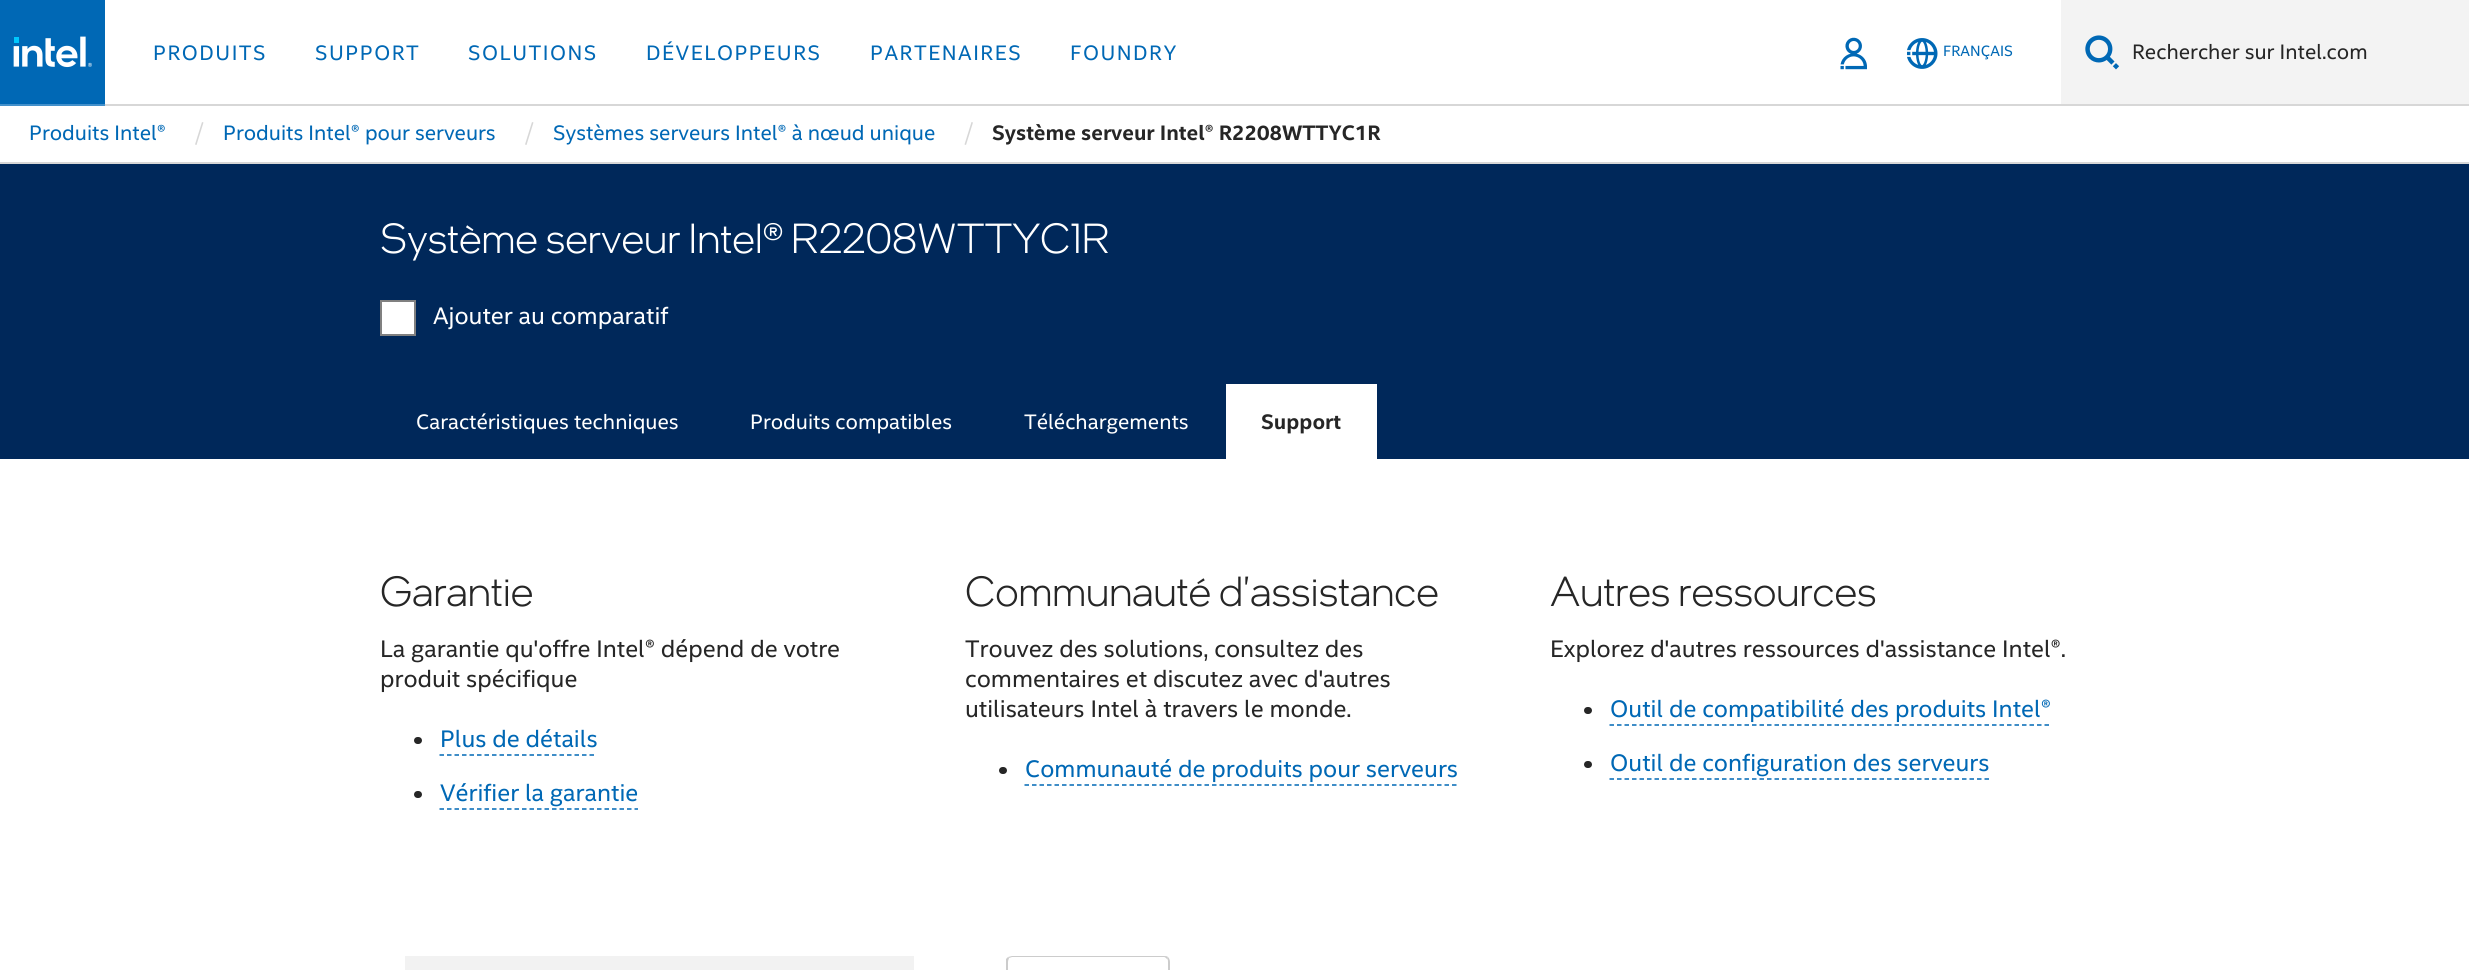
#include <cairo.h>
#include <math.h>
#include <stddef.h>

static cairo_t *ctx;

static void use_color(int r, int g, int b) {
    cairo_set_source_rgb(ctx, r / 255.0, g / 255.0, b / 255.0);
}

static void spaced_text(double x, double y, const char *s, double letter, double word) {
    cairo_move_to(ctx, x, y);
    while (*s) {
        char ch[5] = {0};
        int n = 0;
        do ch[n++] = *s++; while ((*s & 0xC0) == 0x80);
        cairo_show_text(ctx, ch);
        cairo_rel_move_to(ctx, letter + word * (*ch == ' '), 0);
    }
}

static void round_rect(double x, double y, double w, double h, double r) {
    cairo_new_sub_path(ctx);
    cairo_arc(ctx, x + w - r, y + h - r, r, 0, M_PI / 2);
    cairo_arc(ctx, x + r, y + h - r, r, M_PI / 2, M_PI);
    cairo_arc(ctx, x + r, y + r, r, M_PI, 1.5 * M_PI);
    cairo_arc(ctx, x + w - r, y + r, r, 1.5 * M_PI, 2 * M_PI);
    cairo_close_path(ctx);
}

static void picture(const char *path, double x, double y, double w, double h) {
    cairo_surface_t *image = cairo_image_surface_create_from_png(path);
    cairo_save(ctx);
    cairo_set_source_surface(ctx, image, x, y);
    cairo_rectangle(ctx, x, y, w, h);
    cairo_fill(ctx);
    cairo_restore(ctx);
    cairo_surface_destroy(image);
}

int main(void) {
    cairo_surface_t *surface = cairo_image_surface_create(CAIRO_FORMAT_RGB24, 2469, 970);
    ctx = cairo_create(surface);
    cairo_font_options_t *options = cairo_font_options_create();
    cairo_font_options_set_hint_metrics(options, CAIRO_HINT_METRICS_OFF);
    cairo_font_options_set_hint_style(options, CAIRO_HINT_STYLE_NONE);
    cairo_set_font_options(ctx, options);
    cairo_set_miter_limit(ctx, 4);
    use_color(255, 255, 255);
    cairo_paint(ctx);
    use_color(215, 215, 215);
    cairo_rectangle(ctx, 105, 104, 2364, 2);
    cairo_fill(ctx);
    use_color(0, 104, 181);
    cairo_rectangle(ctx, 0, 0, 105, 104);
    cairo_fill(ctx);
    picture("img1.png", 13, 36, 79, 32);
    use_color(66, 144, 203);
    cairo_rectangle(ctx, 0, 104, 105, 2);
    cairo_fill(ctx);
    cairo_select_font_face(ctx, "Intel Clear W", CAIRO_FONT_SLANT_NORMAL, CAIRO_FONT_WEIGHT_NORMAL);
    cairo_set_font_size(ctx, 21);
    use_color(0, 104, 181);
    spaced_text(153, 60, "PRODUITS", 1.5, 0);
    spaced_text(315, 60, "SUPPORT", 1.5, 0);
    spaced_text(468, 60, "SOLUTIONS", 1.5, 0);
    spaced_text(646, 60, "DÉVELOPPEURS", 1.5, 0);
    spaced_text(870, 60, "PARTENAIRES", 1.5, 0);
    spaced_text(1070, 60, "FOUNDRY", 1.5, 0);
    picture("img2.png", 1840, 37, 27, 33);
    picture("img3.png", 1907, 38, 31, 31);
    cairo_set_font_size(ctx, 15);
    cairo_move_to(ctx, 1943, 56);
    cairo_show_text(ctx, "FRANÇAIS");
    use_color(243, 243, 243);
    cairo_rectangle(ctx, 2061, 0, 408, 104);
    cairo_fill(ctx);
    picture("img4.png", 2085, 35, 35, 35);
    cairo_set_font_size(ctx, 21);
    use_color(38, 38, 38);
    cairo_move_to(ctx, 2132, 59);
    cairo_show_text(ctx, "Rechercher sur Intel.com");
    use_color(215, 215, 215);
    cairo_rectangle(ctx, 0, 162, 2469, 2);
    cairo_fill(ctx);
    use_color(0, 104, 181);
    cairo_move_to(ctx, 29, 140);
    cairo_show_text(ctx, "Produits Intel®");
    use_color(215, 215, 215);
    cairo_new_path(ctx);
    cairo_move_to(ctx, 202, 122);
    cairo_line_to(ctx, 203.5, 122.5);
    cairo_line_to(ctx, 196.5, 145);
    cairo_line_to(ctx, 195, 144.5);
    cairo_close_path(ctx);
    cairo_fill(ctx);
    use_color(0, 104, 181);
    cairo_move_to(ctx, 223, 140);
    cairo_show_text(ctx, "Produits Intel® pour serveurs");
    use_color(215, 215, 215);
    cairo_new_path(ctx);
    cairo_move_to(ctx, 532, 122);
    cairo_line_to(ctx, 533.5, 122.5);
    cairo_line_to(ctx, 526.5, 145);
    cairo_line_to(ctx, 525, 144.5);
    cairo_close_path(ctx);
    cairo_fill(ctx);
    use_color(0, 104, 181);
    cairo_move_to(ctx, 553, 140);
    cairo_show_text(ctx, "Systèmes serveurs Intel® à nœud unique");
    use_color(215, 215, 215);
    cairo_new_path(ctx);
    cairo_move_to(ctx, 971.5, 122);
    cairo_line_to(ctx, 973, 122.5);
    cairo_line_to(ctx, 966, 145);
    cairo_line_to(ctx, 964.5, 144.5);
    cairo_close_path(ctx);
    cairo_fill(ctx);
    cairo_select_font_face(ctx, "Intel Clear W", CAIRO_FONT_SLANT_NORMAL, CAIRO_FONT_WEIGHT_BOLD);
    use_color(38, 38, 38);
    cairo_move_to(ctx, 992, 140);
    cairo_show_text(ctx, "Système serveur Intel® R2208WTTYC1R");
    use_color(0, 40, 90);
    cairo_rectangle(ctx, 0, 164, 2469, 295);
    cairo_fill(ctx);
    cairo_select_font_face(ctx, "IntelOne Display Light", CAIRO_FONT_SLANT_NORMAL, CAIRO_FONT_WEIGHT_NORMAL);
    cairo_set_font_size(ctx, 42);
    use_color(255, 255, 255);
    cairo_move_to(ctx, 380, 253);
    cairo_show_text(ctx, "Système serveur Intel® R2208WTTYC1R");
    cairo_rectangle(ctx, 381, 301, 34, 34);
    cairo_fill_preserve(ctx);
    use_color(128, 128, 128);
    cairo_stroke(ctx);
    cairo_select_font_face(ctx, "Intel Clear W", CAIRO_FONT_SLANT_NORMAL, CAIRO_FONT_WEIGHT_NORMAL);
    cairo_set_font_size(ctx, 24);
    use_color(255, 255, 255);
    cairo_move_to(ctx, 433, 324);
    cairo_show_text(ctx, "Ajouter au comparatif");
    cairo_set_font_size(ctx, 21);
    cairo_move_to(ctx, 416, 429);
    cairo_show_text(ctx, "Caractéristiques techniques");
    cairo_move_to(ctx, 750, 429);
    cairo_show_text(ctx, "Produits compatibles");
    cairo_move_to(ctx, 1024, 429);
    cairo_show_text(ctx, "Téléchargements");
    cairo_rectangle(ctx, 1226, 384, 151, 75);
    cairo_fill(ctx);
    cairo_select_font_face(ctx, "Intel Clear W", CAIRO_FONT_SLANT_NORMAL, CAIRO_FONT_WEIGHT_BOLD);
    use_color(38, 38, 38);
    cairo_move_to(ctx, 1261, 429);
    cairo_show_text(ctx, "Support");
    cairo_select_font_face(ctx, "IntelOne Display Light", CAIRO_FONT_SLANT_NORMAL, CAIRO_FONT_WEIGHT_NORMAL);
    cairo_set_font_size(ctx, 42);
    cairo_move_to(ctx, 380, 606);
    cairo_show_text(ctx, "Garantie");
    cairo_select_font_face(ctx, "Intel Clear W", CAIRO_FONT_SLANT_NORMAL, CAIRO_FONT_WEIGHT_NORMAL);
    cairo_set_font_size(ctx, 24);
    cairo_move_to(ctx, 380, 657);
    cairo_show_text(ctx, "La garantie qu'offre Intel® dépend de votre");
    cairo_move_to(ctx, 380, 687);
    cairo_show_text(ctx, "produit spécifique");
    round_rect(414, 737, 8, 7, 3.5);
    cairo_fill(ctx);
    use_color(0, 104, 181);
    cairo_move_to(ctx, 440, 747);
    cairo_show_text(ctx, "Plus de détails");
    cairo_new_path(ctx);
    cairo_move_to(ctx, 439.5, 755);
    cairo_line_to(ctx, 597, 755);
    cairo_set_line_width(ctx, 1.5);
    cairo_set_dash(ctx, (double[]){4.5, 3}, 2, 0);
    cairo_stroke(ctx);
    use_color(38, 38, 38);
    round_rect(414, 791, 8, 7, 3.5);
    cairo_fill(ctx);
    use_color(0, 104, 181);
    cairo_move_to(ctx, 440, 801);
    cairo_show_text(ctx, "Vérifier la garantie");
    cairo_new_path(ctx);
    cairo_move_to(ctx, 439.5, 809);
    cairo_line_to(ctx, 638, 809);
    cairo_stroke(ctx);
    cairo_select_font_face(ctx, "IntelOne Display Light", CAIRO_FONT_SLANT_NORMAL, CAIRO_FONT_WEIGHT_NORMAL);
    cairo_set_font_size(ctx, 42);
    use_color(38, 38, 38);
    cairo_move_to(ctx, 965, 606);
    cairo_show_text(ctx, "Communauté d'assistance");
    cairo_select_font_face(ctx, "Intel Clear W", CAIRO_FONT_SLANT_NORMAL, CAIRO_FONT_WEIGHT_NORMAL);
    cairo_set_font_size(ctx, 24);
    cairo_move_to(ctx, 965, 657);
    cairo_show_text(ctx, "Trouvez des solutions, consultez des");
    cairo_move_to(ctx, 965, 687);
    cairo_show_text(ctx, "commentaires et discutez avec d'autres");
    cairo_move_to(ctx, 965, 717);
    cairo_show_text(ctx, "utilisateurs Intel à travers le monde.");
    round_rect(999, 767, 8, 7, 3.5);
    cairo_fill(ctx);
    use_color(0, 104, 181);
    cairo_move_to(ctx, 1025, 777);
    cairo_show_text(ctx, "Communauté de produits pour serveurs");
    cairo_new_path(ctx);
    cairo_move_to(ctx, 1024.5, 785);
    cairo_line_to(ctx, 1457.5, 785);
    cairo_stroke(ctx);
    cairo_select_font_face(ctx, "IntelOne Display Light", CAIRO_FONT_SLANT_NORMAL, CAIRO_FONT_WEIGHT_NORMAL);
    cairo_set_font_size(ctx, 42);
    use_color(38, 38, 38);
    cairo_move_to(ctx, 1550, 606);
    cairo_show_text(ctx, "Autres ressources");
    cairo_select_font_face(ctx, "Intel Clear W", CAIRO_FONT_SLANT_NORMAL, CAIRO_FONT_WEIGHT_NORMAL);
    cairo_set_font_size(ctx, 24);
    cairo_move_to(ctx, 1550, 657);
    cairo_show_text(ctx, "Explorez d'autres ressources d'assistance Intel®.");
    round_rect(1584, 707, 8, 7, 3.5);
    cairo_fill(ctx);
    use_color(0, 104, 181);
    cairo_move_to(ctx, 1610, 717);
    cairo_show_text(ctx, "Outil de compatibilité des produits Intel®");
    cairo_new_path(ctx);
    cairo_move_to(ctx, 1609.5, 725);
    cairo_line_to(ctx, 2050.5, 725);
    cairo_stroke(ctx);
    use_color(38, 38, 38);
    round_rect(1584, 761, 8, 7, 3.5);
    cairo_fill(ctx);
    use_color(0, 104, 181);
    cairo_move_to(ctx, 1610, 771);
    cairo_show_text(ctx, "Outil de configuration des serveurs");
    cairo_new_path(ctx);
    cairo_move_to(ctx, 1609.5, 779);
    cairo_line_to(ctx, 1989, 779);
    cairo_stroke(ctx);
    use_color(242, 242, 242);
    cairo_rectangle(ctx, 405, 956, 509, 14);
    cairo_fill(ctx);
    use_color(204, 204, 204);
    cairo_new_path(ctx);
    cairo_move_to(ctx, 1012, 956);
    cairo_line_to(ctx, 1008, 957);
    cairo_line_to(ctx, 1009, 958);
    cairo_line_to(ctx, 1012, 957);
    cairo_line_to(ctx, 1164, 957);
    cairo_curve_to(ctx, 1165, 957, 1166, 958, 1167, 959);
    cairo_line_to(ctx, 1168, 957);
    cairo_curve_to(ctx, 1167, 956, 1165, 956, 1164, 956);
    cairo_close_path(ctx);
    cairo_fill(ctx);
    cairo_new_path(ctx);
    cairo_move_to(ctx, 1168, 957);
    cairo_curve_to(ctx, 1169, 958, 1170, 960, 1170, 962);
    cairo_line_to(ctx, 1170, 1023);
    cairo_line_to(ctx, 1168, 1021);
    cairo_line_to(ctx, 1168, 962);
    cairo_curve_to(ctx, 1168, 961, 1168, 959, 1167, 959);
    cairo_close_path(ctx);
    cairo_fill(ctx);
    cairo_new_path(ctx);
    cairo_move_to(ctx, 1006, 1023);
    cairo_line_to(ctx, 1008, 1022);
    cairo_line_to(ctx, 1008, 962);
    cairo_curve_to(ctx, 1008, 960, 1009, 959, 1009, 958);
    cairo_line_to(ctx, 1008, 957);
    cairo_line_to(ctx, 1006, 959);
    cairo_close_path(ctx);
    cairo_fill(ctx);
    cairo_surface_write_to_png(surface, "result.png");
    cairo_font_options_destroy(options);
    cairo_destroy(ctx);
    cairo_surface_destroy(surface);
    return 0;
}
